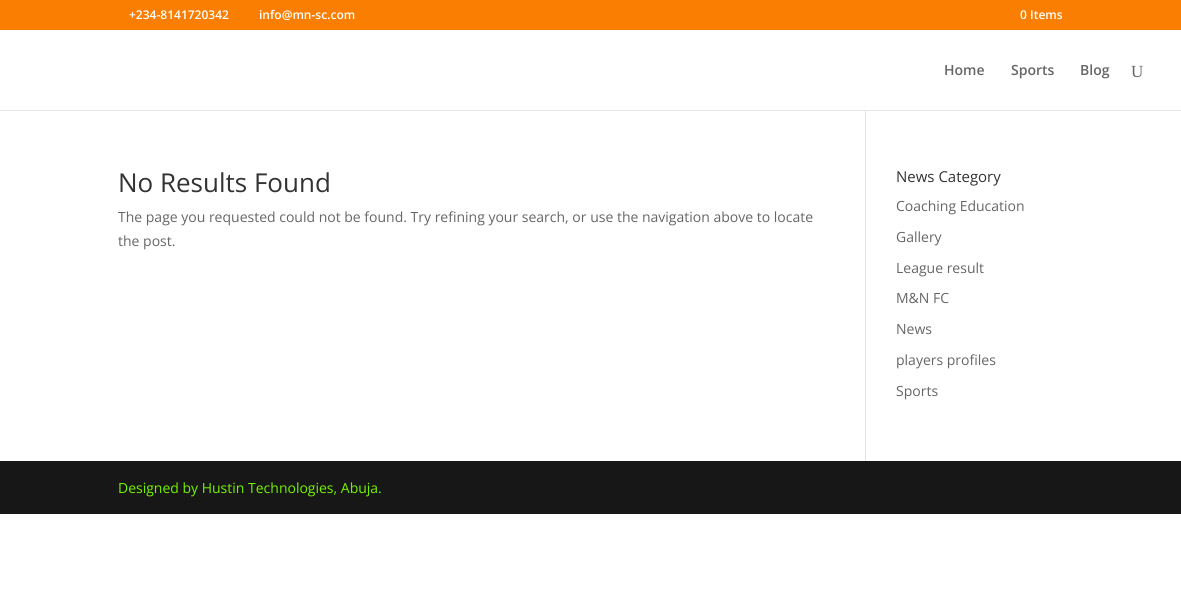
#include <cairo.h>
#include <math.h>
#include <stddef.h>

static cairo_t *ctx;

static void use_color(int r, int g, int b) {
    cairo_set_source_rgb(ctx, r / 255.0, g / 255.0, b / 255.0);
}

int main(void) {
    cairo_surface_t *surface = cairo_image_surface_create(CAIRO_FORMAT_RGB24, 1181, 590);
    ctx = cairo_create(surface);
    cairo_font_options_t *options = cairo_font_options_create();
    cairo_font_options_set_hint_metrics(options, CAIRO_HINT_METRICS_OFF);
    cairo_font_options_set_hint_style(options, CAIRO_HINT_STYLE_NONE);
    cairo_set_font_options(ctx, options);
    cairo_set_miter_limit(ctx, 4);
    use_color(255, 255, 255);
    cairo_paint(ctx);
    use_color(249, 126, 2);
    cairo_rectangle(ctx, 0, 0, 1181, 30);
    cairo_fill(ctx);
    cairo_select_font_face(ctx, "Open Sans SemiBold", CAIRO_FONT_SLANT_NORMAL, CAIRO_FONT_WEIGHT_NORMAL);
    cairo_set_font_size(ctx, 12);
    use_color(255, 255, 255);
    cairo_move_to(ctx, 129, 19);
    cairo_show_text(ctx, "+234-8141720342");
    cairo_move_to(ctx, 259, 19);
    cairo_show_text(ctx, "info@mn-sc.com");
    cairo_move_to(ctx, 1020, 19);
    cairo_show_text(ctx, "0 Items");
    use_color(230, 230, 230);
    cairo_rectangle(ctx, 0, 110, 1181, 1);
    cairo_fill(ctx);
    cairo_set_font_size(ctx, 14);
    use_color(102, 102, 102);
    cairo_move_to(ctx, 944, 75);
    cairo_show_text(ctx, "Home");
    cairo_move_to(ctx, 1011, 75);
    cairo_show_text(ctx, "Sports");
    cairo_move_to(ctx, 1080, 75);
    cairo_show_text(ctx, "Blog");
    cairo_select_font_face(ctx, "Liberation Serif", CAIRO_FONT_SLANT_NORMAL, CAIRO_FONT_WEIGHT_NORMAL);
    cairo_set_font_size(ctx, 17);
    cairo_move_to(ctx, 1131, 77);
    cairo_show_text(ctx, "U");
    use_color(226, 226, 226);
    cairo_rectangle(ctx, 865, 111, 1, 350);
    cairo_fill(ctx);
    cairo_select_font_face(ctx, "Open Sans", CAIRO_FONT_SLANT_NORMAL, CAIRO_FONT_WEIGHT_NORMAL);
    cairo_set_font_size(ctx, 26);
    use_color(51, 51, 51);
    cairo_move_to(ctx, 118, 192);
    cairo_show_text(ctx, "No Results Found");
    cairo_set_font_size(ctx, 14);
    use_color(102, 102, 102);
    cairo_move_to(ctx, 118, 222);
    cairo_show_text(ctx, "The page you requested could not be found. Try refining your search, or use the navigation above to locate");
    cairo_move_to(ctx, 118, 246);
    cairo_show_text(ctx, "the post.");
    cairo_set_font_size(ctx, 15);
    use_color(51, 51, 51);
    cairo_move_to(ctx, 896, 182);
    cairo_show_text(ctx, "News Category");
    cairo_set_font_size(ctx, 14);
    use_color(102, 102, 102);
    cairo_move_to(ctx, 896, 211);
    cairo_show_text(ctx, "Coaching Education");
    cairo_move_to(ctx, 896, 242);
    cairo_show_text(ctx, "Gallery");
    cairo_move_to(ctx, 896, 273);
    cairo_show_text(ctx, "League result");
    cairo_move_to(ctx, 896, 303);
    cairo_show_text(ctx, "M&N FC");
    cairo_move_to(ctx, 896, 334);
    cairo_show_text(ctx, "News");
    cairo_move_to(ctx, 896, 365);
    cairo_show_text(ctx, "players profiles");
    cairo_move_to(ctx, 896, 396);
    cairo_show_text(ctx, "Sports");
    use_color(23, 23, 23);
    cairo_rectangle(ctx, 0, 461, 1181, 53);
    cairo_fill(ctx);
    use_color(117, 242, 0);
    cairo_move_to(ctx, 118, 493);
    cairo_show_text(ctx, "Designed by Hustin Technologies, Abuja.");
    cairo_surface_write_to_png(surface, "result.png");
    cairo_font_options_destroy(options);
    cairo_destroy(ctx);
    cairo_surface_destroy(surface);
    return 0;
}
